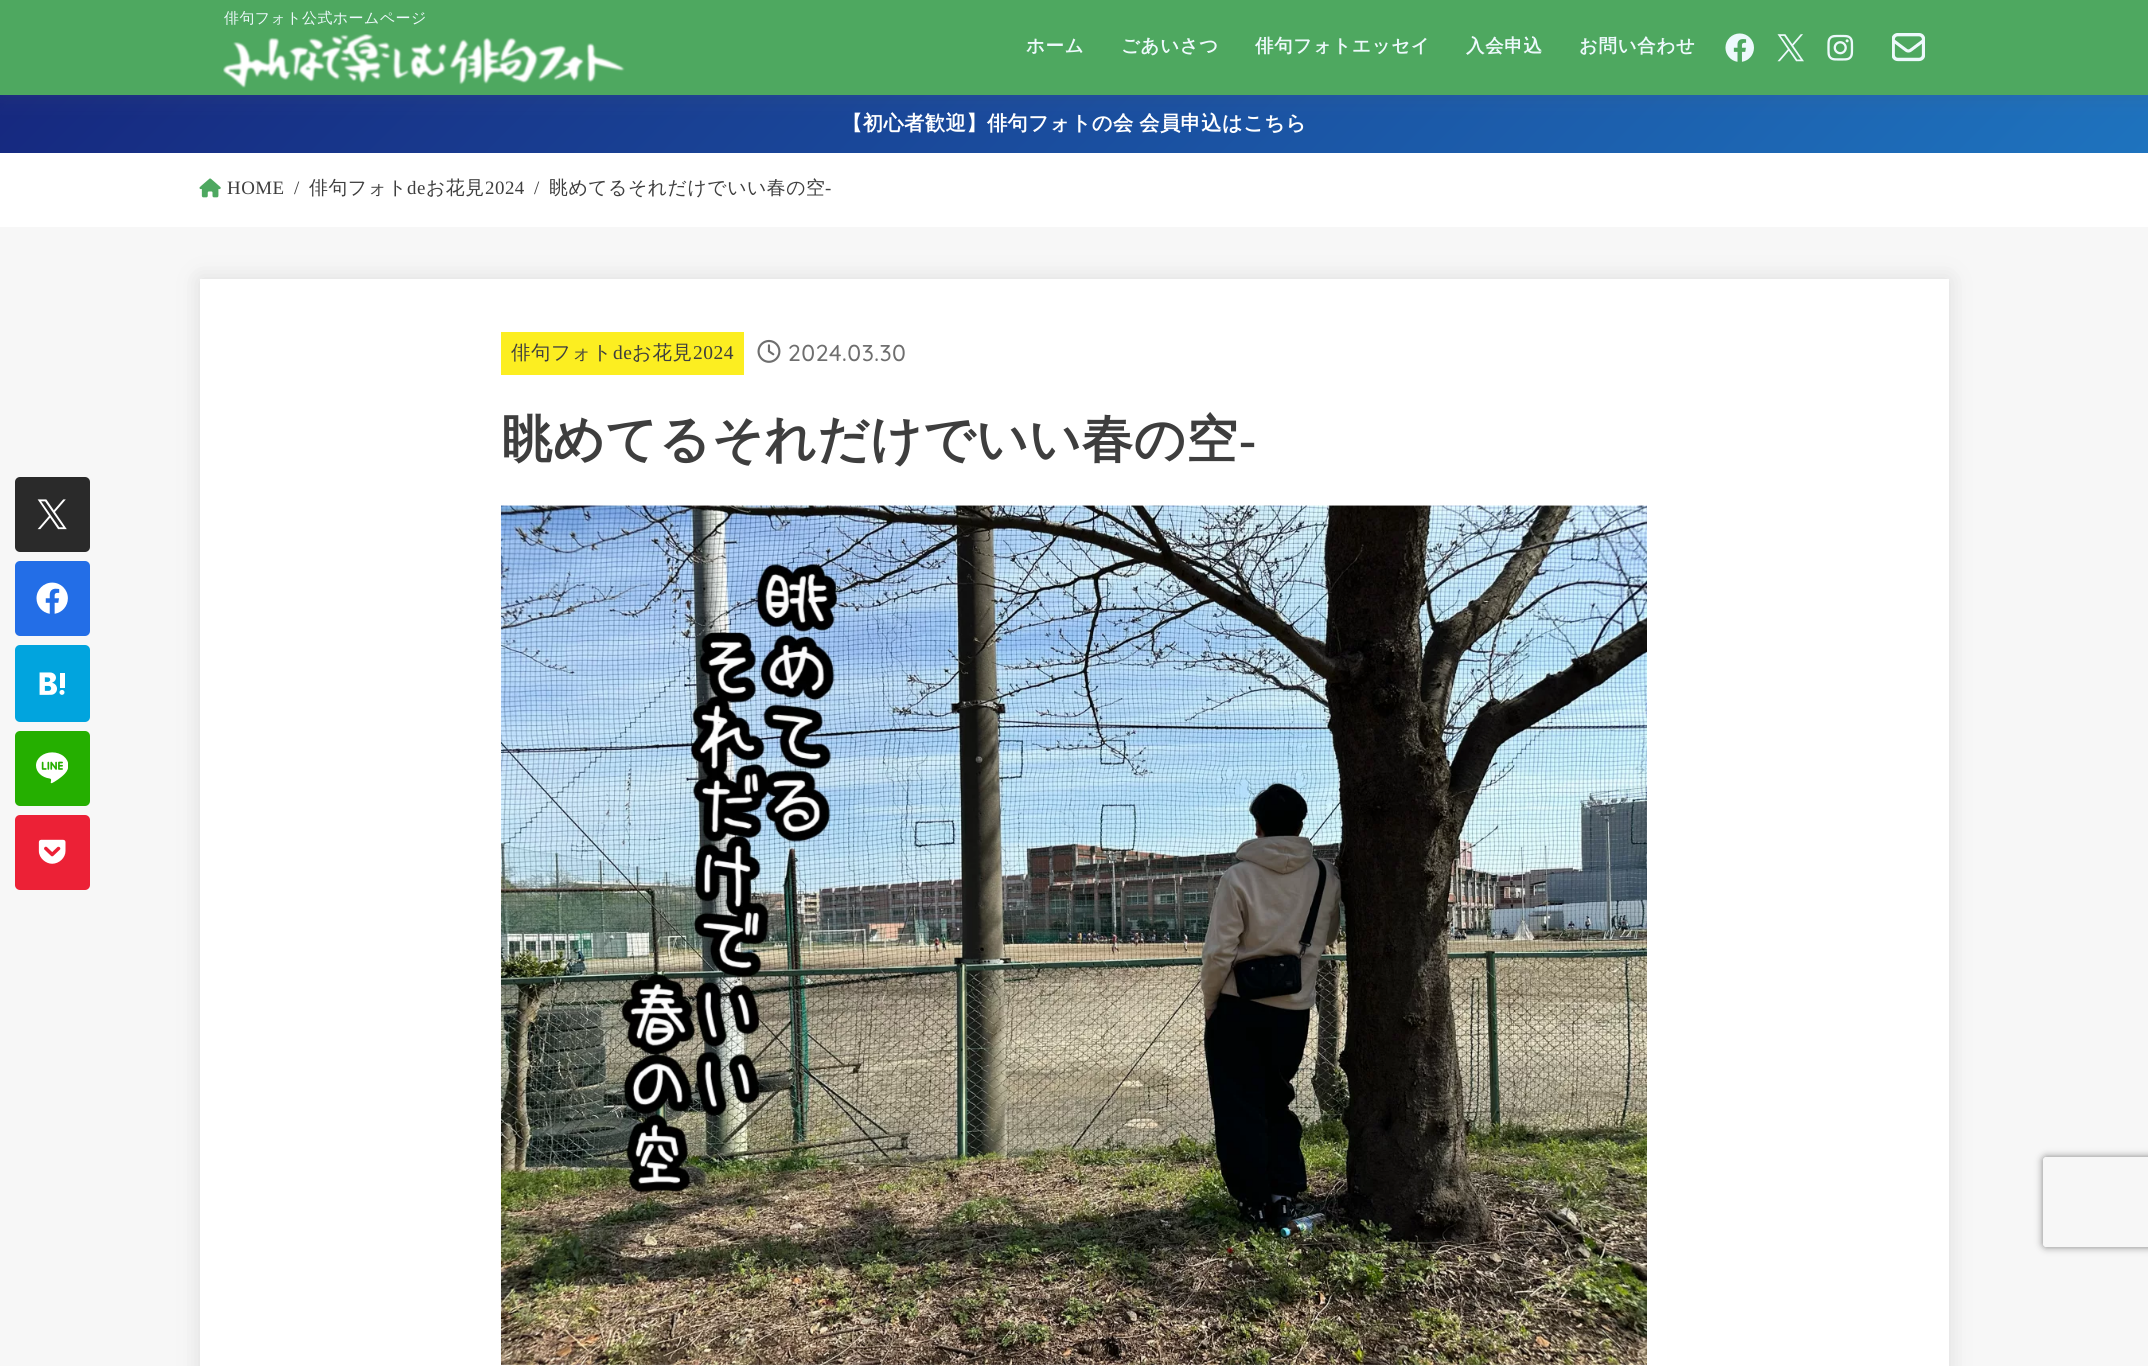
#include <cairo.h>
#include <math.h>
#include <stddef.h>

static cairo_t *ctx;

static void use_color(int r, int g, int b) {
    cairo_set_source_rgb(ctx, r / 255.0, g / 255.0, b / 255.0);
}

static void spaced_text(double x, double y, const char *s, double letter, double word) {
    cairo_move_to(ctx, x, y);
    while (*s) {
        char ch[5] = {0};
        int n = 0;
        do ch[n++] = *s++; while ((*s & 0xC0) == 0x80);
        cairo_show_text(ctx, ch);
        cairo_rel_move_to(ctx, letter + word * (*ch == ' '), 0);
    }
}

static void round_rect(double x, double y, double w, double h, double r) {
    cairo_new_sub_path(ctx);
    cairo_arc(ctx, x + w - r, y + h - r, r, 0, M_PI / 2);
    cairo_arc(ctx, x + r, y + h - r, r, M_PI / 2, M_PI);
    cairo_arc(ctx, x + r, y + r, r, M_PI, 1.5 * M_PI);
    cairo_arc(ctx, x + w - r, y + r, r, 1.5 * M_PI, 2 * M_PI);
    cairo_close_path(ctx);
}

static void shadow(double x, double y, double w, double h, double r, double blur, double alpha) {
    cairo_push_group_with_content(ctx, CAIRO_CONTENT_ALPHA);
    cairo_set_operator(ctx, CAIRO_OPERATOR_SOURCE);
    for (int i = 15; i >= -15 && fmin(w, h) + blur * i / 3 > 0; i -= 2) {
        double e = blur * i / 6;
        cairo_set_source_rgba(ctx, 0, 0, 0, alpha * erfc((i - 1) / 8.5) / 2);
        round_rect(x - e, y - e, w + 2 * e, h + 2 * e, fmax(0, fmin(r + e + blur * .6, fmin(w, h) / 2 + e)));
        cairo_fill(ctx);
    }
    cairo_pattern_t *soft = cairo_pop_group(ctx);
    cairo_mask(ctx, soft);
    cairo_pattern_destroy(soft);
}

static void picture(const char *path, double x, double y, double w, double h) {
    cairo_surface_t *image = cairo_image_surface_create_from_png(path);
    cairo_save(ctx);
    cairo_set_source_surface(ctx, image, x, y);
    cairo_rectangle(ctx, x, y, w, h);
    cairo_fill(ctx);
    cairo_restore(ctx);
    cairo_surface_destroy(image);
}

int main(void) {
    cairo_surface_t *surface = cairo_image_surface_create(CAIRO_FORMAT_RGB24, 2148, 1366);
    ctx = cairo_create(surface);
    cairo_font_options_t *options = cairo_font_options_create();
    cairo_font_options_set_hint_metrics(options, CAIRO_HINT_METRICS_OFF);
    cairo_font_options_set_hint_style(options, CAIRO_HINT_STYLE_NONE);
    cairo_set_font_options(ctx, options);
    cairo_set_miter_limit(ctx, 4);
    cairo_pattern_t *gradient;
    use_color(247, 247, 247);
    cairo_paint(ctx);
    gradient = cairo_pattern_create_linear(522, -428, 1626, 675);
    cairo_pattern_add_color_stop_rgba(gradient, 0, 0.086, 0.157, 0.498, 1);
    cairo_pattern_add_color_stop_rgba(gradient, 1, 0.118, 0.451, 0.745, 1);
    cairo_set_source(ctx, gradient);
    cairo_pattern_destroy(gradient);
    cairo_rectangle(ctx, 0, 95, 2148, 58);
    cairo_fill(ctx);
    use_color(102, 102, 102);
    shadow(0, 0, 2148, 95, 0, 11, 0.2);
    use_color(78, 168, 96);
    cairo_rectangle(ctx, 0, 0, 2148, 95);
    cairo_fill(ctx);
    cairo_select_font_face(ctx, "WenQuanYi Zen Hei Medium", CAIRO_FONT_SLANT_NORMAL, CAIRO_FONT_WEIGHT_NORMAL);
    cairo_set_font_size(ctx, 15);
    use_color(237, 249, 252);
    spaced_text(224, 23, "俳句フォト公式ホームページ", 0.4, 0);
    picture("img1.png", 223, 34, 402, 54);
    cairo_select_font_face(ctx, "WenQuanYi Zen Hei", CAIRO_FONT_SLANT_NORMAL, CAIRO_FONT_WEIGHT_BOLD);
    cairo_set_font_size(ctx, 18.4);
    spaced_text(1026, 52, "ホーム", 0.75, 0);
    spaced_text(1121, 52, "ごあいさつ", 0.75, 0);
    spaced_text(1255, 52, "俳句フォトエッセイ", 0.75, 0);
    spaced_text(1466, 52, "入会申込", 0.75, 0);
    spaced_text(1579, 52, "お問い合わせ", 0.75, 0);
    picture("img2.png", 1725, 33, 29, 29);
    picture("img3.png", 1777, 34, 27, 28);
    picture("img4.png", 1827, 34, 27, 27);
    picture("img5.png", 1892, 33, 33, 29);
    cairo_set_font_size(ctx, 20.25);
    use_color(255, 255, 255);
    spaced_text(842, 130, "【初心者歓迎】俳句フォトの会 会員申込はこちら", 0.45, -1);
    cairo_rectangle(ctx, 0, 153, 2148, 74);
    cairo_fill(ctx);
    picture("img6.png", 199, 178, 22, 20);
    cairo_select_font_face(ctx, "Liberation Serif", CAIRO_FONT_SLANT_NORMAL, CAIRO_FONT_WEIGHT_NORMAL);
    cairo_set_font_size(ctx, 18.9);
    use_color(62, 62, 62);
    spaced_text(227, 194, "HOME", 0.5, 0);
    spaced_text(294, 194, "/", 0.5, 0);
    cairo_select_font_face(ctx, "WenQuanYi Zen Hei Medium", CAIRO_FONT_SLANT_NORMAL, CAIRO_FONT_WEIGHT_NORMAL);
    spaced_text(309, 194, "俳句フォト", 0.5, 0);
    cairo_select_font_face(ctx, "Liberation Serif", CAIRO_FONT_SLANT_NORMAL, CAIRO_FONT_WEIGHT_NORMAL);
    spaced_text(407, 194, "de", 0.5, 0);
    cairo_select_font_face(ctx, "WenQuanYi Zen Hei Medium", CAIRO_FONT_SLANT_NORMAL, CAIRO_FONT_WEIGHT_NORMAL);
    spaced_text(426, 194, "お花見", 0.5, 0);
    cairo_select_font_face(ctx, "Liberation Serif", CAIRO_FONT_SLANT_NORMAL, CAIRO_FONT_WEIGHT_NORMAL);
    spaced_text(485, 194, "2024", 0.5, 0);
    spaced_text(534, 194, "/", 0.5, 0);
    cairo_select_font_face(ctx, "WenQuanYi Zen Hei Medium", CAIRO_FONT_SLANT_NORMAL, CAIRO_FONT_WEIGHT_NORMAL);
    spaced_text(549, 194, "眺めてるそれだけでいい春の空", 0.5, 0);
    cairo_select_font_face(ctx, "Liberation Serif", CAIRO_FONT_SLANT_NORMAL, CAIRO_FONT_WEIGHT_NORMAL);
    spaced_text(825, 194, "-", 0.5, 0);
    use_color(102, 102, 102);
    shadow(200, 279, 1749, 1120, 0, 11, 0.2);
    use_color(255, 255, 255);
    cairo_rectangle(ctx, 200, 279, 1749, 1087);
    cairo_fill(ctx);
    use_color(252, 238, 33);
    cairo_rectangle(ctx, 501, 332, 243, 43);
    cairo_fill(ctx);
    cairo_select_font_face(ctx, "WenQuanYi Zen Hei Medium", CAIRO_FONT_SLANT_NORMAL, CAIRO_FONT_WEIGHT_NORMAL);
    cairo_set_font_size(ctx, 19.5);
    use_color(62, 62, 62);
    spaced_text(511, 359, "俳句フォト", 0.5, 0);
    cairo_select_font_face(ctx, "Liberation Serif", CAIRO_FONT_SLANT_NORMAL, CAIRO_FONT_WEIGHT_NORMAL);
    spaced_text(613, 359, "de", 0.5, 0);
    cairo_select_font_face(ctx, "WenQuanYi Zen Hei Medium", CAIRO_FONT_SLANT_NORMAL, CAIRO_FONT_WEIGHT_NORMAL);
    spaced_text(632, 359, "お花見", 0.5, 0);
    cairo_select_font_face(ctx, "Liberation Serif", CAIRO_FONT_SLANT_NORMAL, CAIRO_FONT_WEIGHT_NORMAL);
    spaced_text(693, 359, "2024", 0.5, 0);
    picture("img7.png", 757, 339, 24, 24);
    cairo_select_font_face(ctx, "Quicksand Medium", CAIRO_FONT_SLANT_NORMAL, CAIRO_FONT_WEIGHT_NORMAL);
    cairo_set_font_size(ctx, 23);
    use_color(110, 110, 110);
    spaced_text(788, 361, "2024.03.30", 0.5, 0);
    cairo_select_font_face(ctx, "WenQuanYi Zen Hei", CAIRO_FONT_SLANT_NORMAL, CAIRO_FONT_WEIGHT_BOLD);
    cairo_set_font_size(ctx, 51.25);
    use_color(62, 62, 62);
    spaced_text(501, 457, "眺めてるそれだけでいい春の空", 0.45, 0);
    cairo_select_font_face(ctx, "Liberation Serif", CAIRO_FONT_SLANT_NORMAL, CAIRO_FONT_WEIGHT_BOLD);
    spaced_text(1239, 457, "-", 0.45, 0);
    picture("img8.png", 501, 505, 1146, 860);
    use_color(42, 42, 42);
    round_rect(15, 477, 75, 75, 5);
    cairo_fill(ctx);
    picture("img9.png", 37, 499, 30, 31);
    use_color(35, 110, 231);
    round_rect(15, 561, 75, 75, 5);
    cairo_fill(ctx);
    picture("img10.png", 36, 582, 32, 32);
    use_color(1, 164, 222);
    round_rect(15, 645, 75, 77, 5);
    cairo_fill(ctx);
    picture("img11.png", 39, 672, 26, 23);
    use_color(37, 175, 0);
    round_rect(15, 731, 75, 75, 5);
    cairo_fill(ctx);
    picture("img12.png", 36, 752, 32, 32);
    use_color(236, 33, 54);
    round_rect(15, 815, 75, 75, 5);
    cairo_fill(ctx);
    picture("img13.png", 38, 839, 28, 25);
    cairo_save(ctx);
    cairo_set_fill_rule(ctx, CAIRO_FILL_RULE_EVEN_ODD);
    cairo_new_path(ctx);
    cairo_move_to(ctx, 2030, 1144);
    cairo_line_to(ctx, 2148, 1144);
    cairo_line_to(ctx, 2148, 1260);
    cairo_line_to(ctx, 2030, 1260);
    cairo_close_path(ctx);
    cairo_move_to(ctx, 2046, 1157);
    cairo_line_to(ctx, 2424, 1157);
    cairo_curve_to(ctx, 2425.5, 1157, 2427, 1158.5, 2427, 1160);
    cairo_line_to(ctx, 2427, 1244);
    cairo_curve_to(ctx, 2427, 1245.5, 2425.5, 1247, 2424, 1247);
    cairo_line_to(ctx, 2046, 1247);
    cairo_curve_to(ctx, 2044.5, 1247, 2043, 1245.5, 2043, 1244);
    cairo_line_to(ctx, 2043, 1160);
    cairo_curve_to(ctx, 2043, 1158.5, 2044.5, 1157, 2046, 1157);
    cairo_close_path(ctx);
    cairo_clip(ctx);
    use_color(128, 128, 128);
    shadow(2043, 1157, 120, 90, 3, 4, 1);
    cairo_restore(ctx);
    cairo_surface_write_to_png(surface, "result.png");
    cairo_font_options_destroy(options);
    cairo_destroy(ctx);
    cairo_surface_destroy(surface);
    return 0;
}
